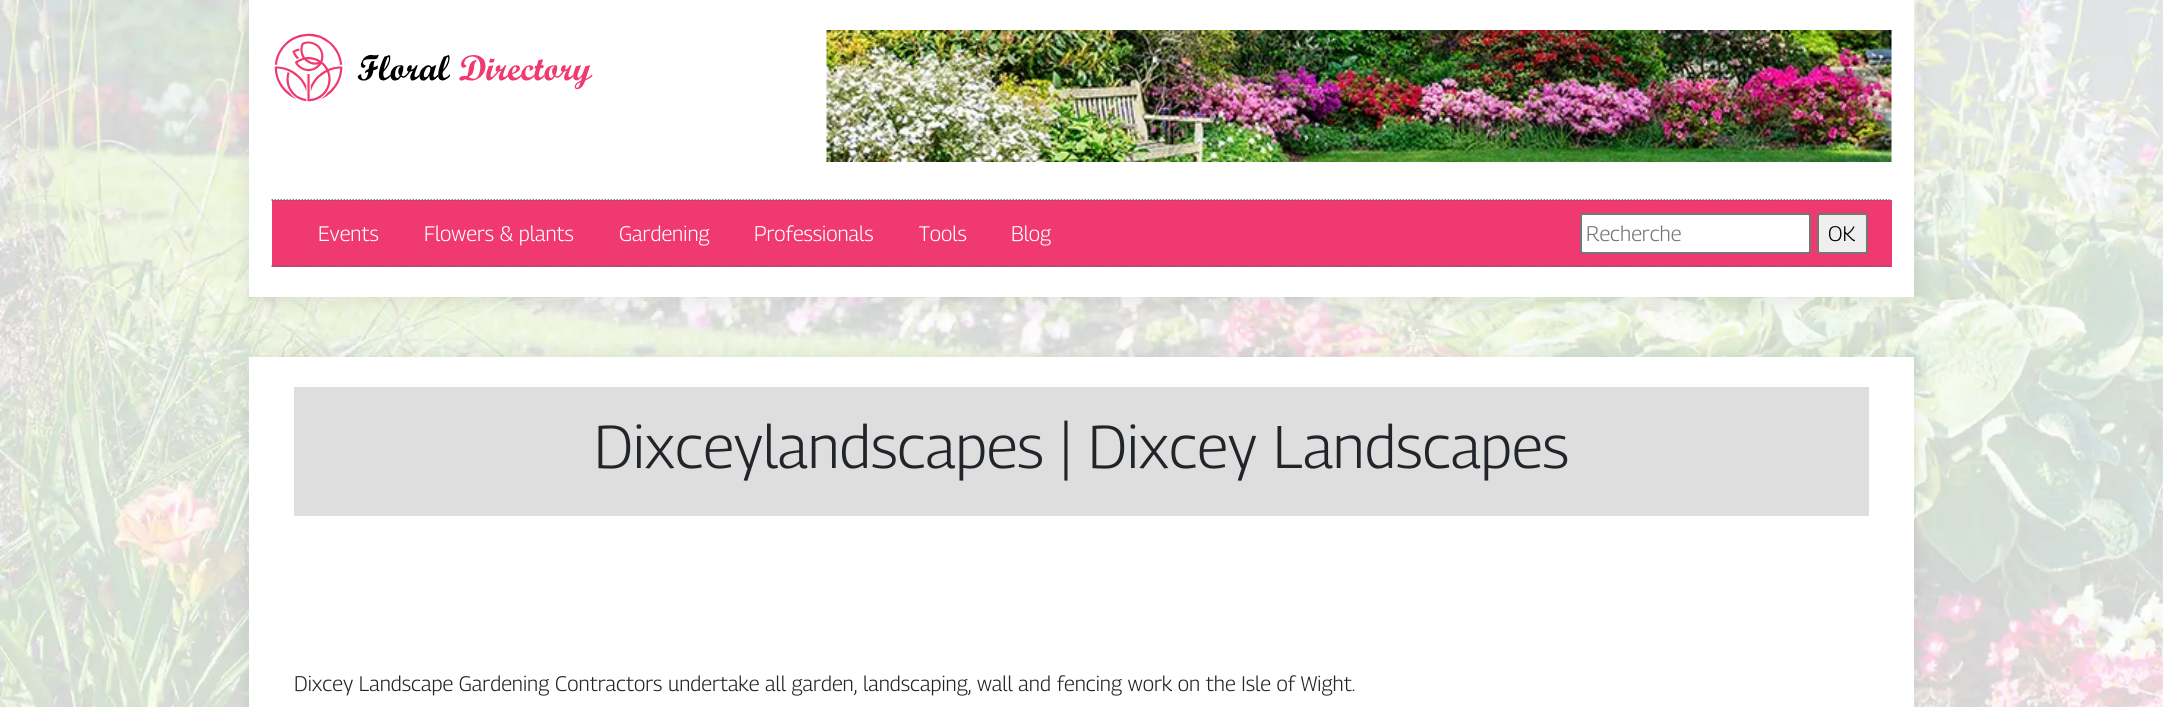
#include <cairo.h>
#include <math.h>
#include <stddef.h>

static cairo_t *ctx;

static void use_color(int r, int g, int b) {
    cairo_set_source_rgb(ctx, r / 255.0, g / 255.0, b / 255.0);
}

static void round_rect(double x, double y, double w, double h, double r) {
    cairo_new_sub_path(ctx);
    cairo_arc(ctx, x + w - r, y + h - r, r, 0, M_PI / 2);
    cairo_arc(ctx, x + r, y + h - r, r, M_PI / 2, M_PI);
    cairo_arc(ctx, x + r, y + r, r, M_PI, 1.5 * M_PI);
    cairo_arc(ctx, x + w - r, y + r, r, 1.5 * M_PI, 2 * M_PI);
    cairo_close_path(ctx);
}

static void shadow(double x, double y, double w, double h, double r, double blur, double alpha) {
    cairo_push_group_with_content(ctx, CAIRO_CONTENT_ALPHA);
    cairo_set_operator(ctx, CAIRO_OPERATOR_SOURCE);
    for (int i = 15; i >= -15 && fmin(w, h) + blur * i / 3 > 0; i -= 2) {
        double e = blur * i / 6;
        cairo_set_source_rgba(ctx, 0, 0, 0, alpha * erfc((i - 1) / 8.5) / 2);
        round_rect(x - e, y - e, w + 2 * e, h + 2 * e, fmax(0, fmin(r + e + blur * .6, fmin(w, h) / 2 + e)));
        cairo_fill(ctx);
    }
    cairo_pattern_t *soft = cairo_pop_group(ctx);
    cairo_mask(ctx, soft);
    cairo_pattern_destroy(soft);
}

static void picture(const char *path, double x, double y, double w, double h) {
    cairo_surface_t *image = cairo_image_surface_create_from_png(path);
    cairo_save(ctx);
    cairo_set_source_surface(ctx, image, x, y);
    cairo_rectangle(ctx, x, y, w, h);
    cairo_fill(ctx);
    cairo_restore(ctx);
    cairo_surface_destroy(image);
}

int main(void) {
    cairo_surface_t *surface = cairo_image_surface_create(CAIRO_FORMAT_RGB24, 2163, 707);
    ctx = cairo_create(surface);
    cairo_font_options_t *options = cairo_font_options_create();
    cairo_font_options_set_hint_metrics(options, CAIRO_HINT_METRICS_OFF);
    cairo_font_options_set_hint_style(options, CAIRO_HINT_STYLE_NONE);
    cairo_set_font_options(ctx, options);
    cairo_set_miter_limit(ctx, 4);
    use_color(255, 255, 255);
    cairo_paint(ctx);
    picture("img1.png", 0, 0, 2163, 707);
    use_color(0, 0, 0);
    shadow(249, 3, 1665, 297, 0, 10, 0.1);
    use_color(255, 255, 255);
    cairo_rectangle(ctx, 249, 0, 1665, 297);
    cairo_fill(ctx);
    picture("img2.png", 274, 33, 319, 69);
    picture("img3.png", 826, 30, 1066, 132);
    use_color(239, 57, 112);
    cairo_rectangle(ctx, 272, 200, 1620, 67);
    cairo_fill(ctx);
    cairo_new_path(ctx);
    cairo_move_to(ctx, 271.5, 200);
    cairo_line_to(ctx, 1891.5, 200);
    use_color(102, 102, 102);
    cairo_set_line_width(ctx, 1.5);
    cairo_set_dash(ctx, (double[]){1.5, 1.5}, 2, 0);
    cairo_stroke(ctx);
    cairo_new_path(ctx);
    cairo_move_to(ctx, 271.5, 266);
    cairo_line_to(ctx, 1891.5, 266);
    cairo_stroke(ctx);
    cairo_select_font_face(ctx, "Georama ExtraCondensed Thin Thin", CAIRO_FONT_SLANT_NORMAL, CAIRO_FONT_WEIGHT_NORMAL);
    cairo_set_font_size(ctx, 21);
    use_color(255, 255, 255);
    cairo_move_to(ctx, 318, 241);
    cairo_show_text(ctx, "Events");
    cairo_move_to(ctx, 424, 241);
    cairo_show_text(ctx, "Flowers & plants");
    cairo_move_to(ctx, 619, 241);
    cairo_show_text(ctx, "Gardening");
    cairo_move_to(ctx, 754, 241);
    cairo_show_text(ctx, "Professionals");
    cairo_move_to(ctx, 919, 241);
    cairo_show_text(ctx, "Tools");
    cairo_move_to(ctx, 1011, 241);
    cairo_show_text(ctx, "Blog");
    round_rect(1581, 214, 229, 39, 2);
    cairo_fill_preserve(ctx);
    use_color(118, 118, 118);
    cairo_set_line_width(ctx, 2);
    cairo_set_dash(ctx, NULL, 0, 0);
    cairo_stroke(ctx);
    use_color(117, 117, 117);
    cairo_move_to(ctx, 1586, 241);
    cairo_show_text(ctx, "Recherche");
    use_color(239, 239, 239);
    round_rect(1818, 214, 49, 39, 2);
    cairo_fill_preserve(ctx);
    use_color(118, 118, 118);
    cairo_stroke(ctx);
    use_color(0, 0, 0);
    cairo_move_to(ctx, 1828, 241);
    cairo_show_text(ctx, "OK");
    use_color(0, 0, 0);
    shadow(249, 360, 1665, 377, 0, 10, 0.1);
    use_color(255, 255, 255);
    cairo_rectangle(ctx, 249, 357, 1665, 350);
    cairo_fill(ctx);
    use_color(222, 222, 222);
    cairo_rectangle(ctx, 294, 387, 1575, 129);
    cairo_fill(ctx);
    cairo_set_font_size(ctx, 60);
    use_color(33, 37, 41);
    cairo_move_to(ctx, 594, 468);
    cairo_show_text(ctx, "Dixceylandscapes | Dixcey Landscapes");
    cairo_set_font_size(ctx, 21);
    cairo_move_to(ctx, 294, 691);
    cairo_show_text(ctx, "Dixcey Landscape Gardening Contractors undertake all garden, landscaping, wall and fencing work on the Isle of Wight.");
    cairo_surface_write_to_png(surface, "result.png");
    cairo_font_options_destroy(options);
    cairo_destroy(ctx);
    cairo_surface_destroy(surface);
    return 0;
}
